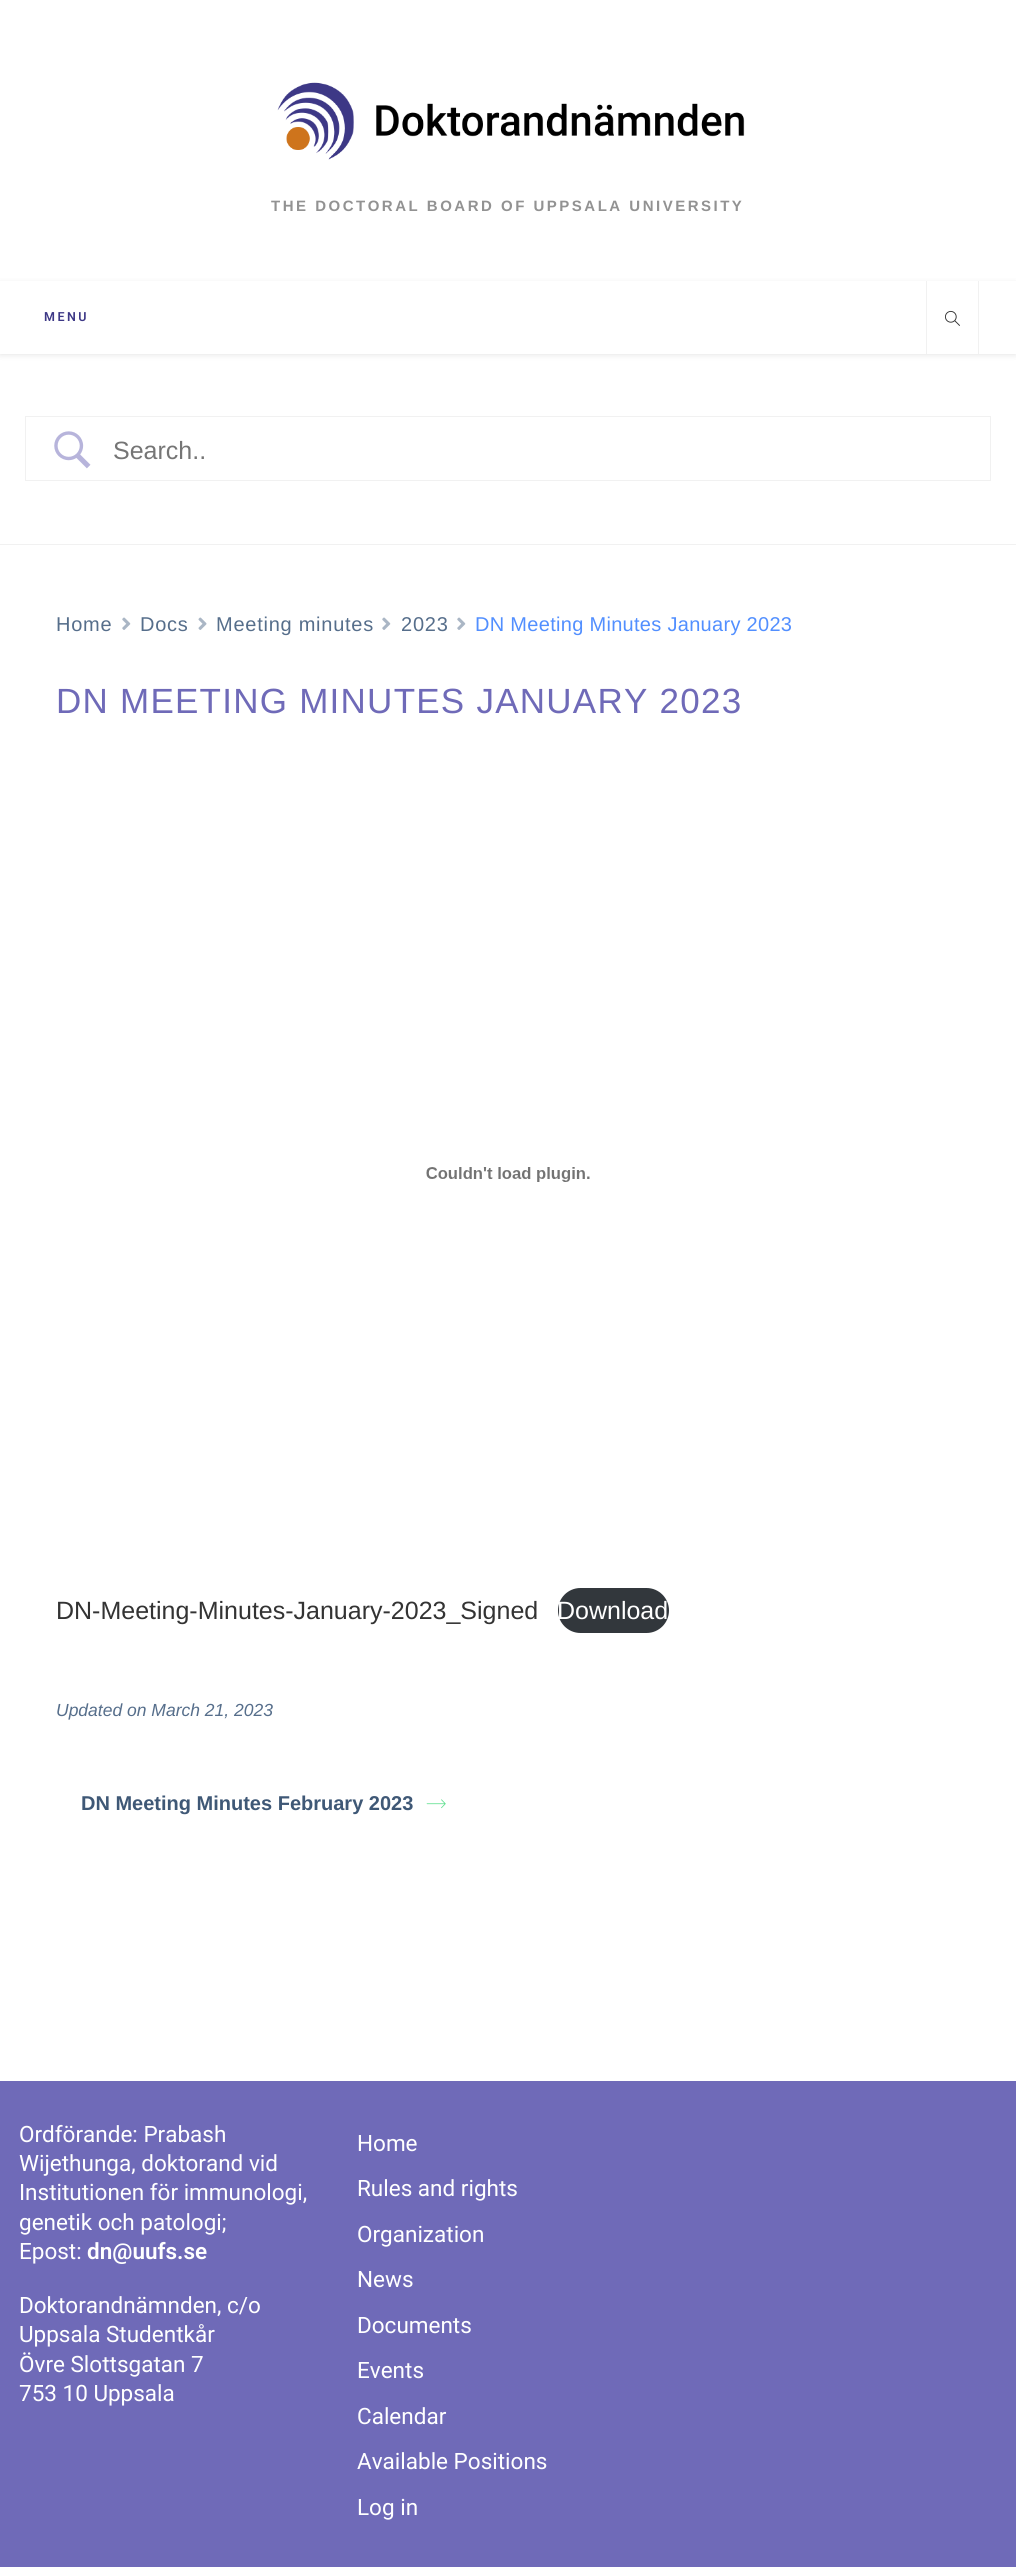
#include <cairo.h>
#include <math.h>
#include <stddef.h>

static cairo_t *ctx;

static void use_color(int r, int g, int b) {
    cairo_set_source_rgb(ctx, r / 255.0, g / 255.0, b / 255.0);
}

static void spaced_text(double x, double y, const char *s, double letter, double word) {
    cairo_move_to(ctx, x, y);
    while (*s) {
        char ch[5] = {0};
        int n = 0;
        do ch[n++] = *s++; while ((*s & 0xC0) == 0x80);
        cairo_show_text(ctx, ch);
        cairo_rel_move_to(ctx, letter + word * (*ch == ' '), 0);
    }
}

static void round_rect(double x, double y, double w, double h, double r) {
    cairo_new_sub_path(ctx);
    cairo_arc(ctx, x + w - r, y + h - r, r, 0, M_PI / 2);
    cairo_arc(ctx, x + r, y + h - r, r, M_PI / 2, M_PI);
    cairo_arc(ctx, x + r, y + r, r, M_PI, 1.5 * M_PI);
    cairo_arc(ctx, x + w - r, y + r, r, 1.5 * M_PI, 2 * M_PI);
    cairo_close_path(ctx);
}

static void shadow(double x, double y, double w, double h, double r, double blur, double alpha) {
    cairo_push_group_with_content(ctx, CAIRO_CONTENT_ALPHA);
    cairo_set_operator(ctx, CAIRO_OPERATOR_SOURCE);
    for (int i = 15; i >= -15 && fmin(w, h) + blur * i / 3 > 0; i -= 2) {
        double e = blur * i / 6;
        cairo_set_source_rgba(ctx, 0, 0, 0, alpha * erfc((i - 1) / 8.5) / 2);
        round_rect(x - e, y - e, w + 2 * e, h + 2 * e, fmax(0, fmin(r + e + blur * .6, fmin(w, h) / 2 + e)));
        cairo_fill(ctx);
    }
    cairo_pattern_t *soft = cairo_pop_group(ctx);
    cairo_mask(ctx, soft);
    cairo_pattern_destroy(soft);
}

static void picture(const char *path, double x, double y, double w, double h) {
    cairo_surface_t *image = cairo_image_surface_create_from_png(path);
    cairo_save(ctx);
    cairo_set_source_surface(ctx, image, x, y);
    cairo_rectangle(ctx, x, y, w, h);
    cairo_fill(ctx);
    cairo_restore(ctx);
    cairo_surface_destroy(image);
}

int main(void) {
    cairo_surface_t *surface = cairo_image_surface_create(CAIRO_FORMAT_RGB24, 1016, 2567);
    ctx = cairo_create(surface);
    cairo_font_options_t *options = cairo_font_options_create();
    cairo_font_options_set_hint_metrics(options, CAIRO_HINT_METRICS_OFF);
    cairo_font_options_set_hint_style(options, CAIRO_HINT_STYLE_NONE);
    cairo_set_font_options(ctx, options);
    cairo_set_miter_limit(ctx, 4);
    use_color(255, 255, 255);
    cairo_paint(ctx);
    picture("img1.png", 277, 82, 468, 78);
    cairo_select_font_face(ctx, "Liberation Sans", CAIRO_FONT_SLANT_NORMAL, CAIRO_FONT_WEIGHT_BOLD);
    cairo_set_font_size(ctx, 15);
    use_color(146, 146, 146);
    spaced_text(271, 211, "THE DOCTORAL BOARD OF UPPSALA UNIVERSITY", 2.5, 0);
    use_color(0, 0, 0);
    shadow(0, 283, 1016, 72, 0, 3, 0.1);
    use_color(255, 255, 255);
    cairo_rectangle(ctx, 0, 281, 1016, 73);
    cairo_fill(ctx);
    cairo_select_font_face(ctx, "Roboto SemiBold", CAIRO_FONT_SLANT_NORMAL, CAIRO_FONT_WEIGHT_NORMAL);
    cairo_set_font_size(ctx, 12.5);
    use_color(61, 56, 134);
    spaced_text(44, 321, "MENU", 2.5, 0);
    use_color(241, 241, 241);
    cairo_rectangle(ctx, 978, 281, 1, 73);
    cairo_fill(ctx);
    cairo_rectangle(ctx, 926, 281, 1, 73);
    cairo_fill(ctx);
    picture("img2.png", 945, 310, 15, 16);
    cairo_rectangle(ctx, 0, 544, 1016, 1);
    cairo_fill(ctx);
    cairo_rectangle(ctx, 25.5, 416.5, 965, 64);
    cairo_set_line_width(ctx, 1);
    cairo_stroke(ctx);
    picture("img3.png", 54, 431, 37, 38);
    cairo_select_font_face(ctx, "Liberation Sans", CAIRO_FONT_SLANT_NORMAL, CAIRO_FONT_WEIGHT_NORMAL);
    cairo_set_font_size(ctx, 25);
    use_color(117, 117, 117);
    cairo_move_to(ctx, 113, 459);
    cairo_show_text(ctx, "Search..");
    cairo_set_font_size(ctx, 20);
    use_color(86, 110, 139);
    spaced_text(56, 631, "Home", 0.75, 0);
    picture("img4.png", 122, 617, 9, 13);
    spaced_text(140, 631, "Docs", 0.75, 0);
    picture("img5.png", 198, 617, 9, 13);
    spaced_text(216, 631, "Meeting minutes", 0.75, 0);
    picture("img4.png", 382, 617, 9, 13);
    spaced_text(401, 631, "2023", 0.75, 0);
    picture("img4.png", 457, 617, 9, 13);
    use_color(82, 143, 255);
    spaced_text(475, 631, "DN Meeting Minutes January 2023", 0.3, 0);
    cairo_set_font_size(ctx, 35);
    use_color(111, 106, 184);
    spaced_text(56, 713, "DN MEETING MINUTES JANUARY 2023", 1.25, 0);
    picture("img6.png", 426, 1167, 164, 15);
    cairo_set_font_size(ctx, 25);
    use_color(51, 51, 51);
    cairo_move_to(ctx, 56, 1619);
    cairo_show_text(ctx, "DN-Meeting-Minutes-January-2023_Signed");
    use_color(50, 55, 60);
    round_rect(558, 1588, 111, 45, 22.5);
    cairo_fill(ctx);
    use_color(255, 255, 255);
    cairo_move_to(ctx, 557, 1619);
    cairo_show_text(ctx, "Download");
    cairo_select_font_face(ctx, "Liberation Sans", CAIRO_FONT_SLANT_ITALIC, CAIRO_FONT_WEIGHT_NORMAL);
    cairo_set_font_size(ctx, 17.5);
    use_color(86, 110, 139);
    cairo_move_to(ctx, 56, 1716);
    cairo_show_text(ctx, "Updated on March 21, 2023");
    cairo_select_font_face(ctx, "Liberation Sans", CAIRO_FONT_SLANT_NORMAL, CAIRO_FONT_WEIGHT_BOLD);
    cairo_set_font_size(ctx, 20);
    use_color(63, 88, 118);
    cairo_move_to(ctx, 81, 1810);
    cairo_show_text(ctx, "DN Meeting Minutes February 2023");
    picture("img7.png", 426, 1799, 20, 10);
    use_color(111, 106, 184);
    cairo_rectangle(ctx, 0, 2081, 1016, 486);
    cairo_fill(ctx);
    cairo_select_font_face(ctx, "Roboto", CAIRO_FONT_SLANT_NORMAL, CAIRO_FONT_WEIGHT_NORMAL);
    cairo_set_font_size(ctx, 22.5);
    use_color(255, 255, 255);
    cairo_move_to(ctx, 19, 2142);
    cairo_show_text(ctx, "Ordförande: Prabash");
    cairo_move_to(ctx, 19, 2171);
    cairo_show_text(ctx, "Wijethunga, doktorand vid");
    cairo_move_to(ctx, 19, 2200);
    cairo_show_text(ctx, "Institutionen för immunologi,");
    cairo_move_to(ctx, 19, 2230);
    cairo_show_text(ctx, "genetik och patologi;");
    cairo_move_to(ctx, 19, 2259);
    cairo_show_text(ctx, "Epost:");
    cairo_select_font_face(ctx, "Roboto SemiBold", CAIRO_FONT_SLANT_NORMAL, CAIRO_FONT_WEIGHT_NORMAL);
    cairo_move_to(ctx, 87, 2259);
    cairo_show_text(ctx, "dn@uufs.se");
    cairo_select_font_face(ctx, "Roboto", CAIRO_FONT_SLANT_NORMAL, CAIRO_FONT_WEIGHT_NORMAL);
    cairo_move_to(ctx, 19, 2313);
    cairo_show_text(ctx, "Doktorandnämnden, c/o");
    cairo_move_to(ctx, 19, 2342);
    cairo_show_text(ctx, "Uppsala Studentkår");
    cairo_move_to(ctx, 19, 2372);
    cairo_show_text(ctx, "Övre Slottsgatan 7");
    cairo_move_to(ctx, 19, 2401);
    cairo_show_text(ctx, "753 10 Uppsala");
    cairo_move_to(ctx, 357, 2151);
    cairo_show_text(ctx, "Home");
    cairo_move_to(ctx, 357, 2196);
    cairo_show_text(ctx, "Rules and rights");
    cairo_move_to(ctx, 357, 2242);
    cairo_show_text(ctx, "Organization");
    cairo_move_to(ctx, 357, 2287);
    cairo_show_text(ctx, "News");
    cairo_move_to(ctx, 357, 2333);
    cairo_show_text(ctx, "Documents");
    cairo_move_to(ctx, 357, 2378);
    cairo_show_text(ctx, "Events");
    cairo_move_to(ctx, 357, 2424);
    cairo_show_text(ctx, "Calendar");
    cairo_move_to(ctx, 357, 2469);
    cairo_show_text(ctx, "Available Positions");
    cairo_move_to(ctx, 357, 2515);
    cairo_show_text(ctx, "Log in");
    cairo_surface_write_to_png(surface, "result.png");
    cairo_font_options_destroy(options);
    cairo_destroy(ctx);
    cairo_surface_destroy(surface);
    return 0;
}
